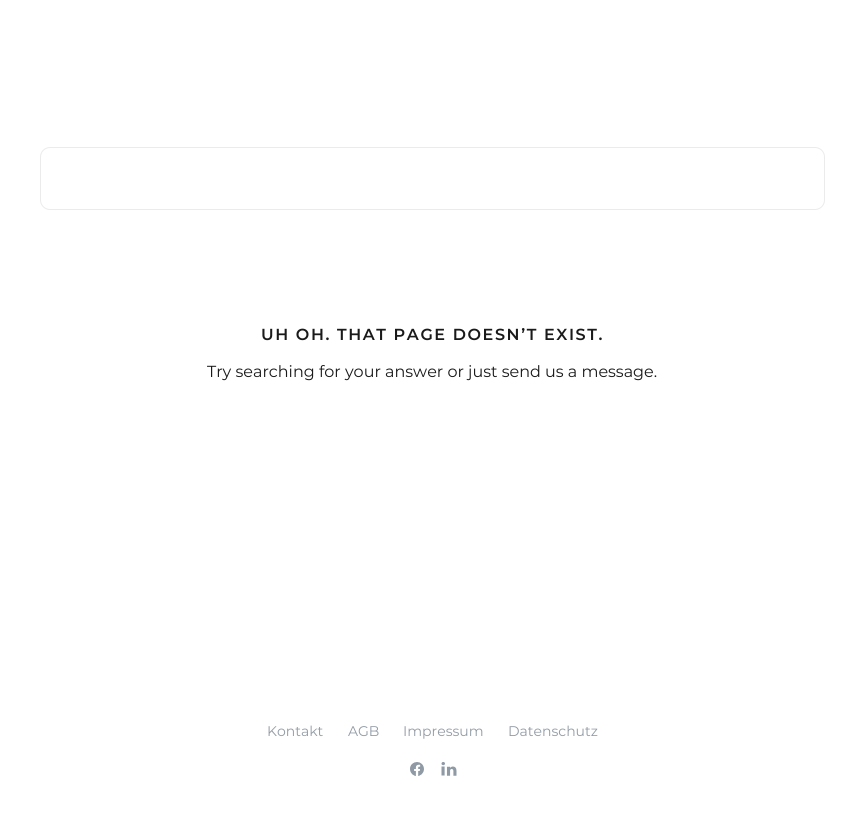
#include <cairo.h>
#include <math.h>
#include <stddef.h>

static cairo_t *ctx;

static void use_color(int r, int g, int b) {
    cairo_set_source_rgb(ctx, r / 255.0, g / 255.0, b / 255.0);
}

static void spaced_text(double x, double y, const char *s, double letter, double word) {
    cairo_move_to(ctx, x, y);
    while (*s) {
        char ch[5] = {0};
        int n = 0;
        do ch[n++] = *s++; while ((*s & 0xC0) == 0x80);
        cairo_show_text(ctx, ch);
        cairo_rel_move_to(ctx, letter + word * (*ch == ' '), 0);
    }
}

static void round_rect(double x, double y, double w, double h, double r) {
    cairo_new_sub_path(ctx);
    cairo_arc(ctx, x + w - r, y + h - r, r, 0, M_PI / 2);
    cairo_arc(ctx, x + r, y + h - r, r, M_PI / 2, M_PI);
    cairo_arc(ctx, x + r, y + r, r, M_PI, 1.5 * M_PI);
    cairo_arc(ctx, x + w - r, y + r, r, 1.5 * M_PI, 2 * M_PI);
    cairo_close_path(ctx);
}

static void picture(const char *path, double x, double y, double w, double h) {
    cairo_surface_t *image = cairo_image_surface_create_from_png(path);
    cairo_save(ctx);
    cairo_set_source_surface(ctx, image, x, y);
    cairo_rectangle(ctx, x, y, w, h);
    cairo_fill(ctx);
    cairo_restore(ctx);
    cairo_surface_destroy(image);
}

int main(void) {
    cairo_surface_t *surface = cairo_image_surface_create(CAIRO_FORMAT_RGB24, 865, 829);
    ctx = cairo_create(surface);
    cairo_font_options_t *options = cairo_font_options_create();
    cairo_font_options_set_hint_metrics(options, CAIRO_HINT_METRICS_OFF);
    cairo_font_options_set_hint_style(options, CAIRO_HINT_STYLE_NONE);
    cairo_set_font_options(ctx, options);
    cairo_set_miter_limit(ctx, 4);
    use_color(255, 255, 255);
    cairo_paint(ctx);
    round_rect(40.5, 147.5, 784, 62, 9.5);
    cairo_set_source_rgba(ctx, 0, 0, 0, 0.08);
    cairo_set_line_width(ctx, 1);
    cairo_stroke(ctx);
    cairo_select_font_face(ctx, "Montserrat SemiBold", CAIRO_FONT_SLANT_NORMAL, CAIRO_FONT_WEIGHT_NORMAL);
    cairo_set_font_size(ctx, 16);
    use_color(26, 26, 26);
    spaced_text(261, 340, "UH OH. THAT PAGE DOESN’T EXIST.", 1.6, 0);
    cairo_select_font_face(ctx, "Montserrat", CAIRO_FONT_SLANT_NORMAL, CAIRO_FONT_WEIGHT_NORMAL);
    cairo_move_to(ctx, 207, 377);
    cairo_show_text(ctx, "Try searching for your answer or just send us a message.");
    cairo_set_font_size(ctx, 14);
    use_color(146, 155, 165);
    cairo_move_to(ctx, 267, 736);
    cairo_show_text(ctx, "Kontakt");
    cairo_move_to(ctx, 348, 736);
    cairo_show_text(ctx, "AGB");
    cairo_move_to(ctx, 403, 736);
    cairo_show_text(ctx, "Impressum");
    cairo_move_to(ctx, 508, 736);
    cairo_show_text(ctx, "Datenschutz");
    picture("img1.png", 410, 762, 14, 14);
    picture("img2.png", 441, 762, 16, 14);
    cairo_surface_write_to_png(surface, "result.png");
    cairo_font_options_destroy(options);
    cairo_destroy(ctx);
    cairo_surface_destroy(surface);
    return 0;
}
